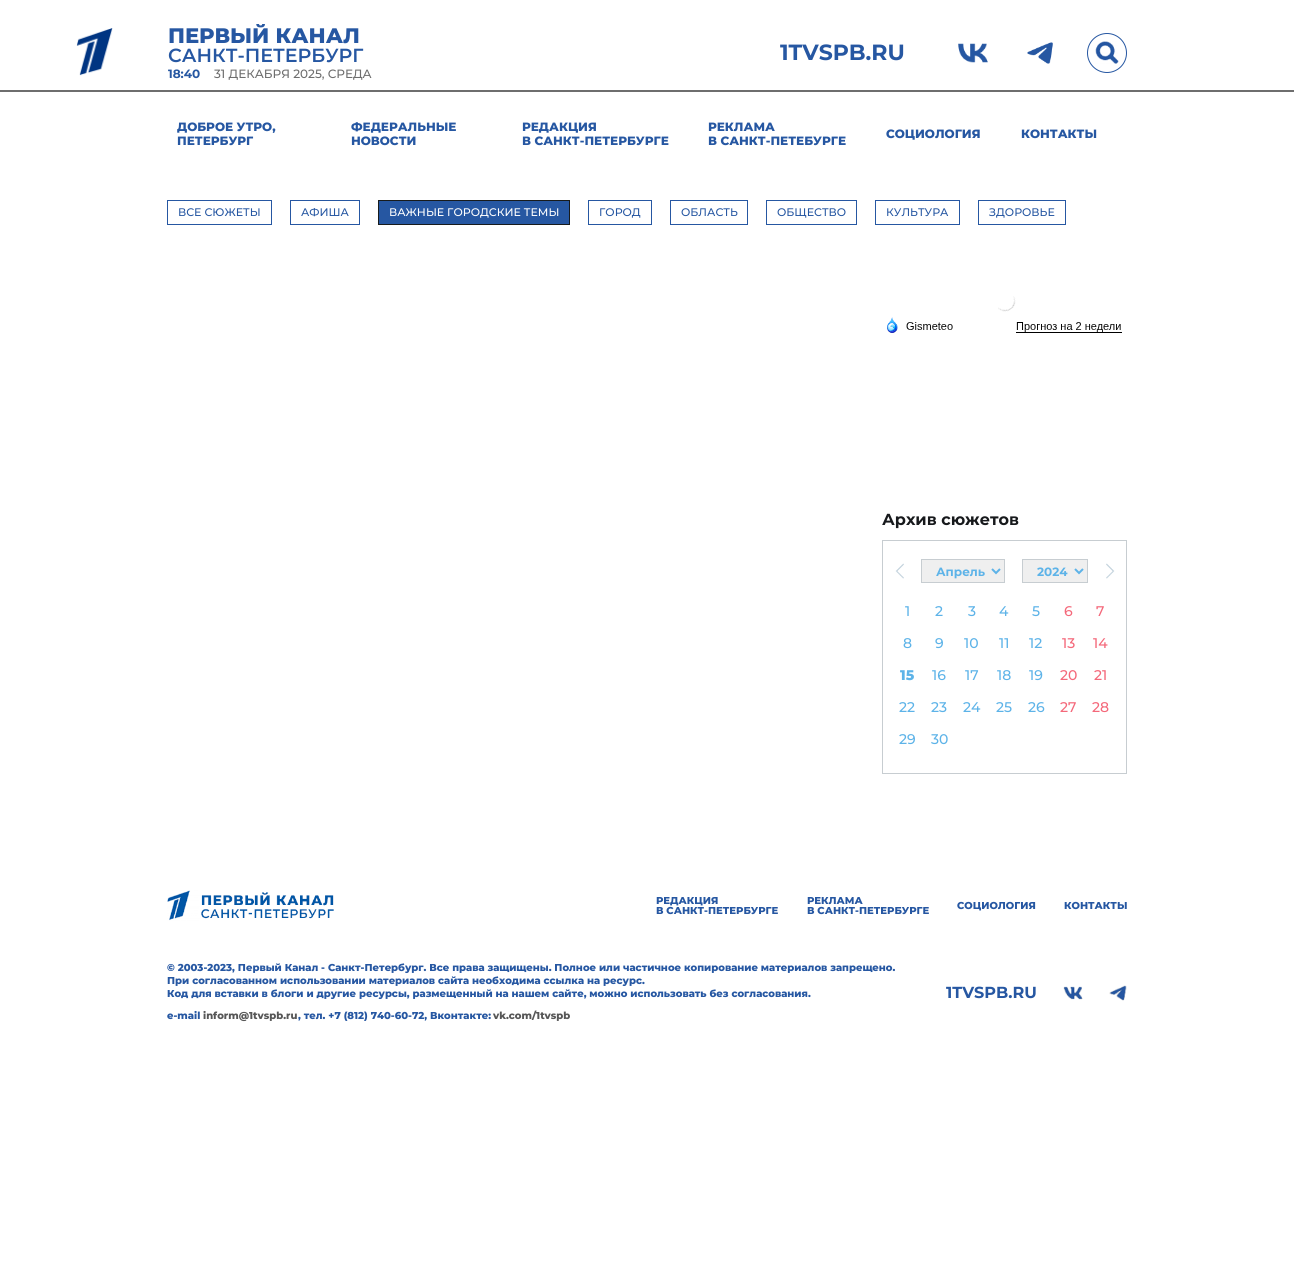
#include <cairo.h>
#include <math.h>
#include <stddef.h>

static cairo_t *ctx;

static void use_color(int r, int g, int b) {
    cairo_set_source_rgb(ctx, r / 255.0, g / 255.0, b / 255.0);
}

static void picture(const char *path, double x, double y, double w, double h) {
    cairo_surface_t *image = cairo_image_surface_create_from_png(path);
    cairo_save(ctx);
    cairo_set_source_surface(ctx, image, x, y);
    cairo_rectangle(ctx, x, y, w, h);
    cairo_fill(ctx);
    cairo_restore(ctx);
    cairo_surface_destroy(image);
}

int main(void) {
    cairo_surface_t *surface = cairo_image_surface_create(CAIRO_FORMAT_RGB24, 1294, 1286);
    ctx = cairo_create(surface);
    cairo_font_options_t *options = cairo_font_options_create();
    cairo_font_options_set_hint_metrics(options, CAIRO_HINT_METRICS_OFF);
    cairo_font_options_set_hint_style(options, CAIRO_HINT_STYLE_NONE);
    cairo_set_font_options(ctx, options);
    cairo_set_miter_limit(ctx, 4);
    use_color(255, 255, 255);
    cairo_paint(ctx);
    use_color(110, 110, 110);
    cairo_rectangle(ctx, 0, 90, 1294, 2);
    cairo_fill(ctx);
    picture("img1.png", 76, 28, 37, 48);
    cairo_select_font_face(ctx, "Montserrat ExtraBold", CAIRO_FONT_SLANT_NORMAL, CAIRO_FONT_WEIGHT_NORMAL);
    cairo_set_font_size(ctx, 21);
    use_color(38, 87, 162);
    cairo_move_to(ctx, 168, 43);
    cairo_show_text(ctx, "ПЕРВЫЙ КАНАЛ");
    cairo_select_font_face(ctx, "Montserrat SemiBold", CAIRO_FONT_SLANT_NORMAL, CAIRO_FONT_WEIGHT_NORMAL);
    cairo_set_font_size(ctx, 19);
    cairo_move_to(ctx, 168, 62);
    cairo_show_text(ctx, "САНКТ-ПЕТЕРБУРГ");
    cairo_select_font_face(ctx, "Montserrat", CAIRO_FONT_SLANT_NORMAL, CAIRO_FONT_WEIGHT_BOLD);
    cairo_set_font_size(ctx, 12);
    cairo_move_to(ctx, 168, 78);
    cairo_show_text(ctx, "18:40");
    cairo_select_font_face(ctx, "Montserrat Medium", CAIRO_FONT_SLANT_NORMAL, CAIRO_FONT_WEIGHT_NORMAL);
    use_color(110, 110, 110);
    cairo_move_to(ctx, 214, 78);
    cairo_show_text(ctx, "31 ДЕКАБРЯ 2025, СРЕДА");
    cairo_select_font_face(ctx, "Montserrat", CAIRO_FONT_SLANT_NORMAL, CAIRO_FONT_WEIGHT_BOLD);
    cairo_set_font_size(ctx, 22);
    use_color(38, 87, 162);
    cairo_move_to(ctx, 780, 60);
    cairo_show_text(ctx, "1TVSPB.RU");
    picture("img2.png", 958, 43, 30, 20);
    picture("img3.png", 1027, 42, 26, 22);
    cairo_arc(ctx, 1107, 53, 19.5, 0, 2 * M_PI);
    cairo_set_line_width(ctx, 1);
    cairo_stroke(ctx);
    picture("img4.png", 1095, 41, 24, 23);
    cairo_select_font_face(ctx, "Montserrat ExtraBold", CAIRO_FONT_SLANT_NORMAL, CAIRO_FONT_WEIGHT_NORMAL);
    cairo_set_font_size(ctx, 12);
    cairo_move_to(ctx, 177, 131);
    cairo_show_text(ctx, "ДОБРОЕ УТРО,");
    cairo_move_to(ctx, 177, 145);
    cairo_show_text(ctx, "ПЕТЕРБУРГ");
    cairo_move_to(ctx, 351, 131);
    cairo_show_text(ctx, "ФЕДЕРАЛЬНЫЕ");
    cairo_move_to(ctx, 351, 145);
    cairo_show_text(ctx, "НОВОСТИ");
    cairo_move_to(ctx, 522, 131);
    cairo_show_text(ctx, "РЕДАКЦИЯ");
    cairo_move_to(ctx, 522, 145);
    cairo_show_text(ctx, "В САНКТ-ПЕТЕРБУРГЕ");
    cairo_move_to(ctx, 708, 131);
    cairo_show_text(ctx, "РЕКЛАМА");
    cairo_move_to(ctx, 708, 145);
    cairo_show_text(ctx, "В САНКТ-ПЕТЕБУРГЕ");
    cairo_move_to(ctx, 886, 138);
    cairo_show_text(ctx, "СОЦИОЛОГИЯ");
    cairo_move_to(ctx, 1021, 138);
    cairo_show_text(ctx, "КОНТАКТЫ");
    cairo_rectangle(ctx, 167.5, 200.5, 104, 24);
    cairo_stroke(ctx);
    cairo_select_font_face(ctx, "Montserrat Medium", CAIRO_FONT_SLANT_NORMAL, CAIRO_FONT_WEIGHT_NORMAL);
    cairo_set_font_size(ctx, 11);
    cairo_move_to(ctx, 178, 216);
    cairo_show_text(ctx, "ВСЕ СЮЖЕТЫ");
    cairo_rectangle(ctx, 290.5, 200.5, 69, 24);
    cairo_stroke(ctx);
    cairo_move_to(ctx, 301, 216);
    cairo_show_text(ctx, "АФИША");
    cairo_rectangle(ctx, 378.5, 200.5, 191, 24);
    cairo_fill_preserve(ctx);
    use_color(24, 27, 28);
    cairo_stroke(ctx);
    use_color(255, 255, 255);
    cairo_move_to(ctx, 389, 216);
    cairo_show_text(ctx, "ВАЖНЫЕ ГОРОДСКИЕ ТЕМЫ");
    cairo_rectangle(ctx, 588.5, 200.5, 63, 24);
    use_color(38, 87, 162);
    cairo_stroke(ctx);
    cairo_move_to(ctx, 599, 216);
    cairo_show_text(ctx, "ГОРОД");
    cairo_rectangle(ctx, 670.5, 200.5, 77, 24);
    cairo_stroke(ctx);
    cairo_move_to(ctx, 681, 216);
    cairo_show_text(ctx, "ОБЛАСТЬ");
    cairo_rectangle(ctx, 766.5, 200.5, 90, 24);
    cairo_stroke(ctx);
    cairo_move_to(ctx, 777, 216);
    cairo_show_text(ctx, "ОБЩЕСТВО");
    cairo_rectangle(ctx, 875.5, 200.5, 84, 24);
    cairo_stroke(ctx);
    cairo_move_to(ctx, 886, 216);
    cairo_show_text(ctx, "КУЛЬТУРА");
    cairo_rectangle(ctx, 978.5, 200.5, 87, 24);
    cairo_stroke(ctx);
    cairo_move_to(ctx, 989, 216);
    cairo_show_text(ctx, "ЗДОРОВЬЕ");
    picture("img5.png", 998, 296, 18, 16);
    picture("img6.png", 887, 317, 11, 16);
    picture("img7.png", 906, 322, 47, 8);
    picture("img8.png", 1016, 322, 105, 10);
    use_color(0, 0, 0);
    cairo_rectangle(ctx, 1016, 332, 106, 1);
    cairo_fill(ctx);
    cairo_select_font_face(ctx, "Montserrat", CAIRO_FONT_SLANT_NORMAL, CAIRO_FONT_WEIGHT_BOLD);
    cairo_set_font_size(ctx, 16);
    use_color(23, 25, 28);
    cairo_move_to(ctx, 882, 525);
    cairo_show_text(ctx, "Архив сюжетов");
    cairo_rectangle(ctx, 882.5, 540.5, 244, 233);
    use_color(199, 205, 209);
    cairo_stroke(ctx);
    picture("img9.png", 895, 563, 9, 16);
    use_color(239, 239, 239);
    cairo_rectangle(ctx, 921.5, 559.5, 83, 23);
    cairo_fill_preserve(ctx);
    use_color(199, 205, 209);
    cairo_stroke(ctx);
    cairo_new_path(ctx);
    cairo_move_to(ctx, 992, 569);
    cairo_line_to(ctx, 996, 573);
    cairo_line_to(ctx, 1000, 569);
    use_color(93, 179, 232);
    cairo_set_line_width(ctx, 2);
    cairo_stroke(ctx);
    cairo_set_font_size(ctx, 12);
    cairo_move_to(ctx, 936, 576);
    cairo_show_text(ctx, "Апрель");
    use_color(239, 239, 239);
    cairo_rectangle(ctx, 1022.5, 559.5, 65, 23);
    cairo_fill_preserve(ctx);
    use_color(199, 205, 209);
    cairo_set_line_width(ctx, 1);
    cairo_stroke(ctx);
    cairo_new_path(ctx);
    cairo_move_to(ctx, 1075, 569);
    cairo_line_to(ctx, 1079, 573);
    cairo_line_to(ctx, 1083, 569);
    use_color(93, 179, 232);
    cairo_set_line_width(ctx, 2);
    cairo_stroke(ctx);
    cairo_move_to(ctx, 1037, 576);
    cairo_show_text(ctx, "2024");
    picture("img10.png", 1106, 563, 9, 16);
    cairo_select_font_face(ctx, "Montserrat Medium", CAIRO_FONT_SLANT_NORMAL, CAIRO_FONT_WEIGHT_NORMAL);
    cairo_set_font_size(ctx, 14);
    cairo_move_to(ctx, 905, 616);
    cairo_show_text(ctx, "1");
    cairo_move_to(ctx, 935, 616);
    cairo_show_text(ctx, "2");
    cairo_move_to(ctx, 968, 616);
    cairo_show_text(ctx, "3");
    cairo_move_to(ctx, 999, 616);
    cairo_show_text(ctx, "4");
    cairo_move_to(ctx, 1032, 616);
    cairo_show_text(ctx, "5");
    use_color(244, 104, 122);
    cairo_move_to(ctx, 1064, 616);
    cairo_show_text(ctx, "6");
    cairo_move_to(ctx, 1096, 616);
    cairo_show_text(ctx, "7");
    use_color(93, 179, 232);
    cairo_move_to(ctx, 903, 648);
    cairo_show_text(ctx, "8");
    cairo_move_to(ctx, 935, 648);
    cairo_show_text(ctx, "9");
    cairo_move_to(ctx, 964, 648);
    cairo_show_text(ctx, "10");
    cairo_move_to(ctx, 999, 648);
    cairo_show_text(ctx, "11");
    cairo_move_to(ctx, 1029, 648);
    cairo_show_text(ctx, "12");
    use_color(244, 104, 122);
    cairo_move_to(ctx, 1062, 648);
    cairo_show_text(ctx, "13");
    cairo_move_to(ctx, 1093, 648);
    cairo_show_text(ctx, "14");
    cairo_select_font_face(ctx, "Montserrat ExtraBold", CAIRO_FONT_SLANT_NORMAL, CAIRO_FONT_WEIGHT_NORMAL);
    use_color(93, 179, 232);
    cairo_move_to(ctx, 900, 680);
    cairo_show_text(ctx, "15");
    cairo_select_font_face(ctx, "Montserrat Medium", CAIRO_FONT_SLANT_NORMAL, CAIRO_FONT_WEIGHT_NORMAL);
    cairo_move_to(ctx, 932, 680);
    cairo_show_text(ctx, "16");
    cairo_move_to(ctx, 965, 680);
    cairo_show_text(ctx, "17");
    cairo_move_to(ctx, 997, 680);
    cairo_show_text(ctx, "18");
    cairo_move_to(ctx, 1029, 680);
    cairo_show_text(ctx, "19");
    use_color(244, 104, 122);
    cairo_move_to(ctx, 1060, 680);
    cairo_show_text(ctx, "20");
    cairo_move_to(ctx, 1094, 680);
    cairo_show_text(ctx, "21");
    use_color(93, 179, 232);
    cairo_move_to(ctx, 899, 712);
    cairo_show_text(ctx, "22");
    cairo_move_to(ctx, 931, 712);
    cairo_show_text(ctx, "23");
    cairo_move_to(ctx, 963, 712);
    cairo_show_text(ctx, "24");
    cairo_move_to(ctx, 996, 712);
    cairo_show_text(ctx, "25");
    cairo_move_to(ctx, 1028, 712);
    cairo_show_text(ctx, "26");
    use_color(244, 104, 122);
    cairo_move_to(ctx, 1060, 712);
    cairo_show_text(ctx, "27");
    cairo_move_to(ctx, 1092, 712);
    cairo_show_text(ctx, "28");
    use_color(93, 179, 232);
    cairo_move_to(ctx, 899, 744);
    cairo_show_text(ctx, "29");
    cairo_move_to(ctx, 931, 744);
    cairo_show_text(ctx, "30");
    picture("img11.png", 167, 890, 167, 31);
    cairo_select_font_face(ctx, "Montserrat ExtraBold", CAIRO_FONT_SLANT_NORMAL, CAIRO_FONT_WEIGHT_NORMAL);
    cairo_set_font_size(ctx, 10);
    use_color(38, 87, 162);
    cairo_move_to(ctx, 656, 904);
    cairo_show_text(ctx, "РЕДАКЦИЯ");
    cairo_move_to(ctx, 656, 914);
    cairo_show_text(ctx, "В САНКТ-ПЕТЕРБУРГЕ");
    cairo_move_to(ctx, 807, 904);
    cairo_show_text(ctx, "РЕКЛАМА");
    cairo_move_to(ctx, 807, 914);
    cairo_show_text(ctx, "В САНКТ-ПЕТЕРБУРГЕ");
    cairo_move_to(ctx, 957, 909);
    cairo_show_text(ctx, "СОЦИОЛОГИЯ");
    cairo_move_to(ctx, 1064, 909);
    cairo_show_text(ctx, "КОНТАКТЫ");
    cairo_move_to(ctx, 167, 971);
    cairo_show_text(ctx, "© 2003-2023, Первый Канал - Санкт-Петербург. Все права защищены. Полное или частичное копирование материалов запрещено.");
    cairo_move_to(ctx, 167, 984);
    cairo_show_text(ctx, "При согласованном использовании материалов сайта необходима ссылка на ресурс.");
    cairo_move_to(ctx, 167, 997);
    cairo_show_text(ctx, "Код для вставки в блоги и другие ресурсы, размещенный на нашем сайте, можно использовать без согласования.");
    cairo_move_to(ctx, 167, 1019);
    cairo_show_text(ctx, "e-mail");
    use_color(87, 87, 87);
    cairo_move_to(ctx, 203, 1019);
    cairo_show_text(ctx, "inform@1tvspb.ru");
    use_color(38, 87, 162);
    cairo_move_to(ctx, 298, 1019);
    cairo_show_text(ctx, ", тел. +7 (812) 740-60-72, Вконтакте:");
    use_color(87, 87, 87);
    cairo_move_to(ctx, 493, 1019);
    cairo_show_text(ctx, "vk.com/1tvspb");
    cairo_select_font_face(ctx, "Montserrat", CAIRO_FONT_SLANT_NORMAL, CAIRO_FONT_WEIGHT_BOLD);
    cairo_set_font_size(ctx, 16);
    use_color(38, 87, 162);
    cairo_move_to(ctx, 946, 998);
    cairo_show_text(ctx, "1TVSPB.RU");
    picture("img12.png", 1063, 986, 20, 14);
    picture("img13.png", 1109, 985, 18, 16);
    cairo_surface_write_to_png(surface, "result.png");
    cairo_font_options_destroy(options);
    cairo_destroy(ctx);
    cairo_surface_destroy(surface);
    return 0;
}
